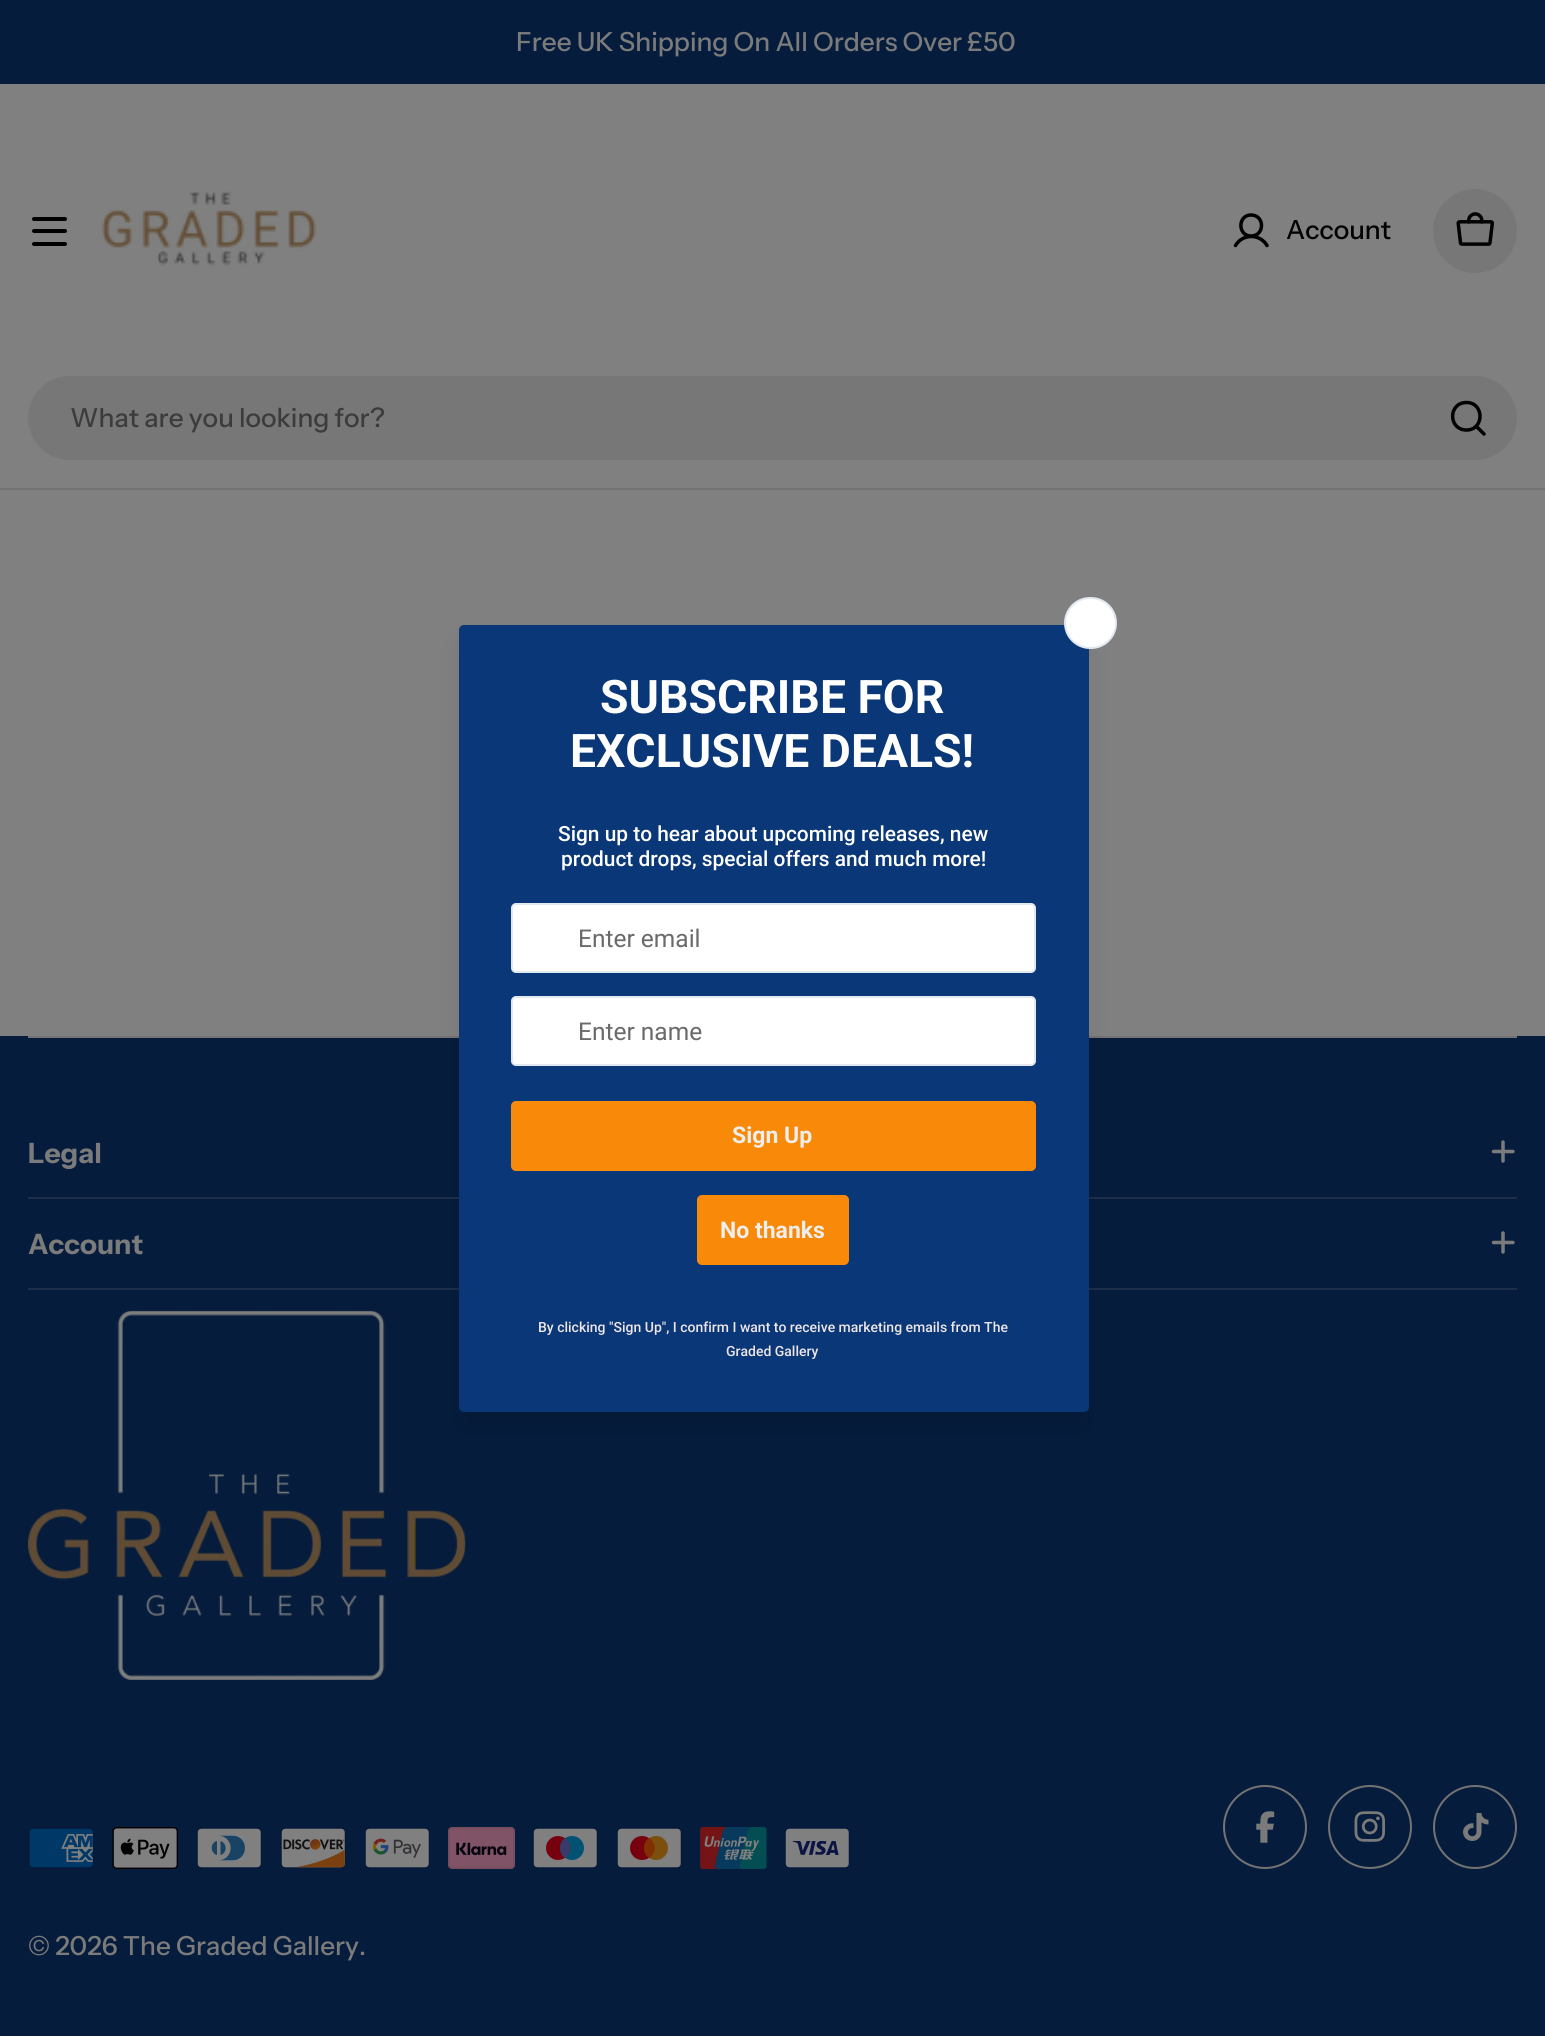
#include <cairo.h>
#include <math.h>
#include <stddef.h>

static cairo_t *ctx;

static void use_color(int r, int g, int b) {
    cairo_set_source_rgb(ctx, r / 255.0, g / 255.0, b / 255.0);
}

static void round_rect(double x, double y, double w, double h, double r) {
    cairo_new_sub_path(ctx);
    cairo_arc(ctx, x + w - r, y + h - r, r, 0, M_PI / 2);
    cairo_arc(ctx, x + r, y + h - r, r, M_PI / 2, M_PI);
    cairo_arc(ctx, x + r, y + r, r, M_PI, 1.5 * M_PI);
    cairo_arc(ctx, x + w - r, y + r, r, 1.5 * M_PI, 2 * M_PI);
    cairo_close_path(ctx);
}

static void shadow(double x, double y, double w, double h, double r, double blur, double alpha) {
    cairo_push_group_with_content(ctx, CAIRO_CONTENT_ALPHA);
    cairo_set_operator(ctx, CAIRO_OPERATOR_SOURCE);
    for (int i = 15; i >= -15 && fmin(w, h) + blur * i / 3 > 0; i -= 2) {
        double e = blur * i / 6;
        cairo_set_source_rgba(ctx, 0, 0, 0, alpha * erfc((i - 1) / 8.5) / 2);
        round_rect(x - e, y - e, w + 2 * e, h + 2 * e, fmax(0, fmin(r + e + blur * .6, fmin(w, h) / 2 + e)));
        cairo_fill(ctx);
    }
    cairo_pattern_t *soft = cairo_pop_group(ctx);
    cairo_mask(ctx, soft);
    cairo_pattern_destroy(soft);
}

static void picture(const char *path, double x, double y, double w, double h) {
    cairo_surface_t *image = cairo_image_surface_create_from_png(path);
    cairo_save(ctx);
    cairo_set_source_surface(ctx, image, x, y);
    cairo_rectangle(ctx, x, y, w, h);
    cairo_fill(ctx);
    cairo_restore(ctx);
    cairo_surface_destroy(image);
}

int main(void) {
    cairo_surface_t *surface = cairo_image_surface_create(CAIRO_FORMAT_RGB24, 1545, 2036);
    ctx = cairo_create(surface);
    cairo_font_options_t *options = cairo_font_options_create();
    cairo_font_options_set_hint_metrics(options, CAIRO_HINT_METRICS_OFF);
    cairo_font_options_set_hint_style(options, CAIRO_HINT_STYLE_NONE);
    cairo_set_font_options(ctx, options);
    cairo_set_miter_limit(ctx, 4);
    use_color(128, 128, 128);
    cairo_paint(ctx);
    use_color(5, 28, 60);
    cairo_rectangle(ctx, 0, 0, 1545, 84);
    cairo_fill(ctx);
    cairo_select_font_face(ctx, "Instrument Sans Medium", CAIRO_FONT_SLANT_NORMAL, CAIRO_FONT_WEIGHT_NORMAL);
    cairo_set_font_size(ctx, 26.25);
    use_color(123, 123, 123);
    cairo_move_to(ctx, 516, 51);
    cairo_show_text(ctx, "Free UK Shipping On All Orders Over £50");
    use_color(0, 0, 0);
    round_rect(32, 229, 35, 4, 2);
    cairo_fill(ctx);
    round_rect(32, 217, 35, 4, 2);
    cairo_fill(ctx);
    round_rect(32, 242, 35, 4, 2);
    cairo_fill(ctx);
    picture("img1.png", 101, 191, 216, 75);
    cairo_new_path(ctx);
    cairo_move_to(ctx, 1251, 236);
    cairo_curve_to(ctx, 1265, 236, 1265, 215, 1251, 215);
    cairo_curve_to(ctx, 1237.5, 215, 1237.5, 236, 1251, 236);
    cairo_close_path(ctx);
    cairo_move_to(ctx, 1235.5, 245.5);
    cairo_curve_to(ctx, 1242.5, 233.5, 1260, 233.5, 1267, 245.5);
    cairo_set_line_width(ctx, 3.5);
    cairo_set_line_cap(ctx, CAIRO_LINE_CAP_ROUND);
    cairo_set_line_join(ctx, CAIRO_LINE_JOIN_ROUND);
    cairo_stroke(ctx);
    cairo_move_to(ctx, 1286, 239);
    cairo_show_text(ctx, "Account");
    use_color(119, 119, 119);
    cairo_new_path(ctx);
    cairo_arc(ctx, 1475, 231, 42, 0, 2 * M_PI);
    cairo_fill(ctx);
    picture("img2.png", 1456, 212, 38, 34);
    round_rect(28, 376, 1489, 84, 42);
    cairo_fill(ctx);
    use_color(60, 60, 60);
    cairo_move_to(ctx, 70, 427);
    cairo_show_text(ctx, "What are you looking for?");
    cairo_new_path(ctx);
    cairo_move_to(ctx, 1466.5, 430);
    cairo_curve_to(ctx, 1484.5, 430, 1484.5, 402.5, 1466.5, 402.5);
    cairo_curve_to(ctx, 1448, 402.5, 1448, 430, 1466.5, 430);
    cairo_close_path(ctx);
    cairo_move_to(ctx, 1476, 426);
    cairo_line_to(ctx, 1484, 434);
    use_color(0, 0, 0);
    cairo_stroke(ctx);
    use_color(115, 115, 115);
    cairo_rectangle(ctx, 0, 488, 1545, 2);
    cairo_fill(ctx);
    use_color(5, 28, 60);
    cairo_rectangle(ctx, 0, 1036, 1545, 1000);
    cairo_fill(ctx);
    use_color(115, 115, 115);
    cairo_rectangle(ctx, 28, 1036, 1489, 2);
    cairo_fill(ctx);
    use_color(29, 47, 72);
    cairo_rectangle(ctx, 28, 1197, 1489, 2);
    cairo_fill(ctx);
    cairo_select_font_face(ctx, "Instrument Sans", CAIRO_FONT_SLANT_NORMAL, CAIRO_FONT_WEIGHT_BOLD);
    cairo_set_font_size(ctx, 28);
    use_color(123, 123, 123);
    cairo_move_to(ctx, 28, 1163);
    cairo_show_text(ctx, "Legal");
    cairo_new_path(ctx);
    cairo_move_to(ctx, 1493.5, 1151.5);
    cairo_line_to(ctx, 1513, 1151.5);
    cairo_move_to(ctx, 1503, 1142);
    cairo_line_to(ctx, 1503, 1161);
    cairo_stroke(ctx);
    use_color(29, 47, 72);
    cairo_rectangle(ctx, 28, 1288, 1489, 2);
    cairo_fill(ctx);
    use_color(123, 123, 123);
    cairo_move_to(ctx, 28, 1254);
    cairo_show_text(ctx, "Account");
    cairo_new_path(ctx);
    cairo_move_to(ctx, 1493.5, 1242.5);
    cairo_line_to(ctx, 1513, 1242.5);
    cairo_move_to(ctx, 1503, 1233);
    cairo_line_to(ctx, 1503, 1252);
    cairo_stroke(ctx);
    picture("img3.png", 28, 1310, 438, 370);
    picture("img4.png", 28, 1827, 67, 42);
    picture("img5.png", 112, 1827, 67, 42);
    picture("img6.png", 196, 1827, 67, 42);
    picture("img7.png", 280, 1827, 67, 42);
    picture("img8.png", 364, 1827, 67, 42);
    picture("img9.png", 448, 1827, 67, 42);
    picture("img10.png", 532, 1827, 67, 42);
    picture("img11.png", 616, 1827, 67, 42);
    picture("img12.png", 700, 1827, 67, 42);
    picture("img13.png", 784, 1827, 67, 42);
    cairo_arc(ctx, 1265, 1827, 41, 0, 2 * M_PI);
    use_color(115, 115, 115);
    cairo_set_line_width(ctx, 2);
    cairo_set_line_cap(ctx, CAIRO_LINE_CAP_BUTT);
    cairo_set_line_join(ctx, CAIRO_LINE_JOIN_MITER);
    cairo_stroke(ctx);
    picture("img14.png", 1256, 1811, 19, 32);
    cairo_arc(ctx, 1370, 1827, 41, 0, 2 * M_PI);
    cairo_stroke(ctx);
    picture("img15.png", 1354, 1811, 32, 31);
    cairo_arc(ctx, 1475, 1827, 41, 0, 2 * M_PI);
    cairo_stroke(ctx);
    picture("img16.png", 1463, 1813, 26, 28);
    cairo_select_font_face(ctx, "Instrument Sans Medium", CAIRO_FONT_SLANT_NORMAL, CAIRO_FONT_WEIGHT_NORMAL);
    cairo_set_font_size(ctx, 26.25);
    use_color(123, 123, 123);
    cairo_move_to(ctx, 28, 1955);
    cairo_show_text(ctx, "© 2026 The Graded Gallery.");
    use_color(0, 0, 0);
    shadow(464, 648, 619, 777, 0, 13, 0.1);
    use_color(10, 55, 119);
    round_rect(459, 625, 630, 787, 5);
    cairo_fill(ctx);
    use_color(255, 255, 255);
    round_rect(1065, 598, 51, 50, 25);
    cairo_fill_preserve(ctx);
    use_color(226, 232, 240);
    cairo_stroke(ctx);
    cairo_select_font_face(ctx, "Roboto", CAIRO_FONT_SLANT_NORMAL, CAIRO_FONT_WEIGHT_BOLD);
    cairo_set_font_size(ctx, 46.25);
    use_color(255, 255, 255);
    cairo_move_to(ctx, 600, 713);
    cairo_show_text(ctx, "SUBSCRIBE FOR");
    cairo_move_to(ctx, 570, 767);
    cairo_show_text(ctx, "EXCLUSIVE DEALS!");
    cairo_select_font_face(ctx, "Roboto Medium", CAIRO_FONT_SLANT_NORMAL, CAIRO_FONT_WEIGHT_NORMAL);
    cairo_set_font_size(ctx, 20.9);
    cairo_move_to(ctx, 558, 841);
    cairo_show_text(ctx, "Sign up to hear about upcoming releases, new");
    cairo_move_to(ctx, 561, 866);
    cairo_show_text(ctx, "product drops, special offers and much more!");
    round_rect(512, 904, 523, 68, 4);
    cairo_fill_preserve(ctx);
    use_color(226, 232, 240);
    cairo_stroke(ctx);
    cairo_select_font_face(ctx, "Roboto", CAIRO_FONT_SLANT_NORMAL, CAIRO_FONT_WEIGHT_NORMAL);
    cairo_set_font_size(ctx, 24.5);
    use_color(107, 106, 106);
    cairo_move_to(ctx, 578, 947);
    cairo_show_text(ctx, "Enter email");
    use_color(255, 255, 255);
    round_rect(512, 997, 523, 68, 4);
    cairo_fill_preserve(ctx);
    use_color(226, 232, 240);
    cairo_stroke(ctx);
    use_color(107, 106, 106);
    cairo_move_to(ctx, 578, 1040);
    cairo_show_text(ctx, "Enter name");
    use_color(249, 137, 8);
    round_rect(511, 1101, 525, 70, 5);
    cairo_fill(ctx);
    cairo_select_font_face(ctx, "Roboto", CAIRO_FONT_SLANT_NORMAL, CAIRO_FONT_WEIGHT_BOLD);
    cairo_set_font_size(ctx, 23);
    use_color(238, 238, 238);
    cairo_move_to(ctx, 732, 1143);
    cairo_show_text(ctx, "Sign Up");
    use_color(249, 137, 8);
    round_rect(697, 1195, 152, 70, 5);
    cairo_fill(ctx);
    use_color(238, 238, 238);
    cairo_move_to(ctx, 720, 1238);
    cairo_show_text(ctx, "No thanks");
    cairo_select_font_face(ctx, "Roboto Medium", CAIRO_FONT_SLANT_NORMAL, CAIRO_FONT_WEIGHT_NORMAL);
    cairo_set_font_size(ctx, 14);
    use_color(238, 230, 230);
    cairo_move_to(ctx, 538, 1332);
    cairo_show_text(ctx, "By clicking \"Sign Up\", I confirm I want to receive marketing emails from The");
    cairo_move_to(ctx, 726, 1356);
    cairo_show_text(ctx, "Graded Gallery");
    cairo_surface_write_to_png(surface, "result.png");
    cairo_font_options_destroy(options);
    cairo_destroy(ctx);
    cairo_surface_destroy(surface);
    return 0;
}
